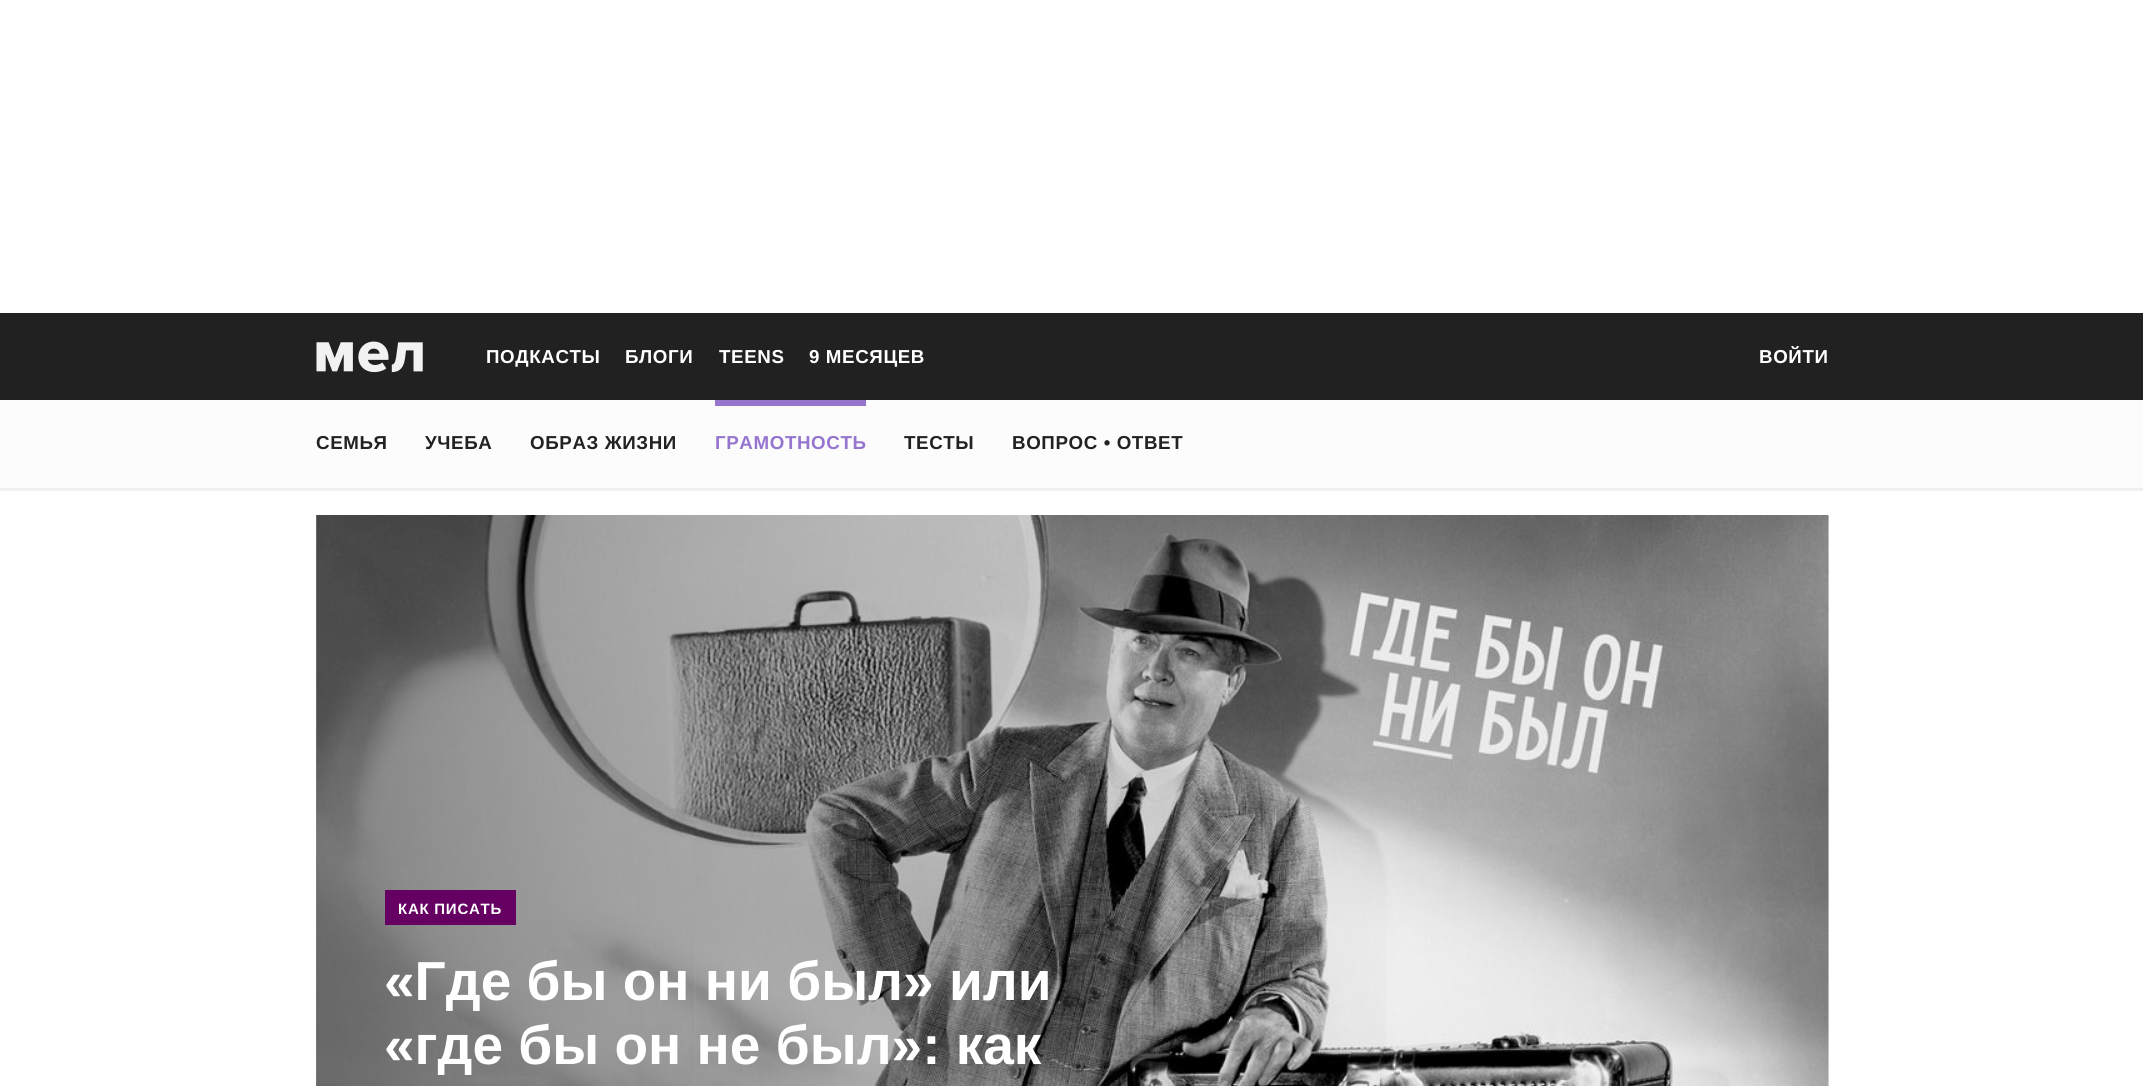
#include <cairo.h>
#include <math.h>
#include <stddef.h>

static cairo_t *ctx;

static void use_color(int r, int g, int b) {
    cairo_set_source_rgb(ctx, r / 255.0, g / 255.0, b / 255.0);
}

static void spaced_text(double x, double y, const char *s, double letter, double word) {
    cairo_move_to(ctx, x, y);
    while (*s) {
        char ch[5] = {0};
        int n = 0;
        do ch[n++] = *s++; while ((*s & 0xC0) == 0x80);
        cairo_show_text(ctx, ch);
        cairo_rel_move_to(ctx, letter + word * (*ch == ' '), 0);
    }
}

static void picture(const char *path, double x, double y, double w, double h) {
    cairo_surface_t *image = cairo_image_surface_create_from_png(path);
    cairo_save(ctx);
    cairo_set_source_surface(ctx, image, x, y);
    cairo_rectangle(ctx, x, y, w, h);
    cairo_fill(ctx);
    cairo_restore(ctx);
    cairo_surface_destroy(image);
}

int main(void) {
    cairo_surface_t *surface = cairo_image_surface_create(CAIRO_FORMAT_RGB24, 2143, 1086);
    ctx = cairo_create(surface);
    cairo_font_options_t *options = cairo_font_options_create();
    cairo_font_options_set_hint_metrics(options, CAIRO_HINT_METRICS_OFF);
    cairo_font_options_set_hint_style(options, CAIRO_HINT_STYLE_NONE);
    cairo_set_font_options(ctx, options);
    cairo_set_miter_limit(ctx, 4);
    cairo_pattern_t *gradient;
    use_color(255, 255, 255);
    cairo_paint(ctx);
    use_color(242, 242, 242);
    cairo_rectangle(ctx, 0, 490, 2143, 1);
    cairo_fill(ctx);
    use_color(33, 33, 33);
    cairo_rectangle(ctx, 0, 313, 2143, 87);
    cairo_fill(ctx);
    picture("img1.png", 316, 341, 107, 32);
    cairo_select_font_face(ctx, "Liberation Sans", CAIRO_FONT_SLANT_NORMAL, CAIRO_FONT_WEIGHT_BOLD);
    cairo_set_font_size(ctx, 18.75);
    use_color(255, 255, 255);
    spaced_text(486, 363, "ПОДКАСТЫ", 0.6, 0);
    spaced_text(625, 363, "БЛОГИ", 0.6, 0);
    spaced_text(719, 363, "TEENS", 0.6, 0);
    spaced_text(809, 363, "9 МЕСЯЦЕВ", 0.6, 0);
    spaced_text(1759, 363, "ВОЙТИ", 0.6, 0);
    use_color(252, 252, 252);
    cairo_rectangle(ctx, 0, 400, 2143, 88);
    cairo_fill(ctx);
    use_color(239, 239, 239);
    cairo_rectangle(ctx, 0, 488, 2143, 2);
    cairo_fill(ctx);
    use_color(34, 34, 34);
    spaced_text(316, 449, "СЕМЬЯ", 0.6, 0);
    spaced_text(425, 449, "УЧЕБА", 0.6, 0);
    spaced_text(530, 449, "ОБРАЗ ЖИЗНИ", 0.6, 0);
    use_color(149, 117, 205);
    cairo_rectangle(ctx, 715, 400, 151, 6);
    cairo_fill(ctx);
    spaced_text(715, 449, "ГРАМОТНОСТЬ", 0.6, 0);
    use_color(34, 34, 34);
    spaced_text(904, 449, "ТЕСТЫ", 0.6, 0);
    spaced_text(1012, 449, "ВОПРОС • ОТВЕТ", 0.6, 0);
    picture("img2.png", 316, 515, 1513, 571);
    gradient = cairo_pattern_create_linear(275, 1031, 1870, 749);
    cairo_pattern_add_color_stop_rgba(gradient, 0, 0, 0, 0, 0.5);
    cairo_pattern_add_color_stop_rgba(gradient, 0.7, 0, 0, 0, 0);
    cairo_pattern_add_color_stop_rgba(gradient, 1, 0, 0, 0, 0);
    cairo_set_source(ctx, gradient);
    cairo_pattern_destroy(gradient);
    cairo_rectangle(ctx, 316, 515, 1070, 571);
    cairo_fill(ctx);
    use_color(101, 0, 98);
    cairo_rectangle(ctx, 385, 890, 131, 35);
    cairo_fill(ctx);
    cairo_set_font_size(ctx, 15);
    use_color(255, 255, 255);
    spaced_text(398, 914, "КАК ПИСАТЬ", 0.75, 0);
    cairo_set_font_size(ctx, 55);
    cairo_move_to(ctx, 384, 1000);
    cairo_show_text(ctx, "«Где бы он ни был» или");
    cairo_move_to(ctx, 384, 1064);
    cairo_show_text(ctx, "«где бы он не был»: как");
    cairo_surface_write_to_png(surface, "result.png");
    cairo_font_options_destroy(options);
    cairo_destroy(ctx);
    cairo_surface_destroy(surface);
    return 0;
}
